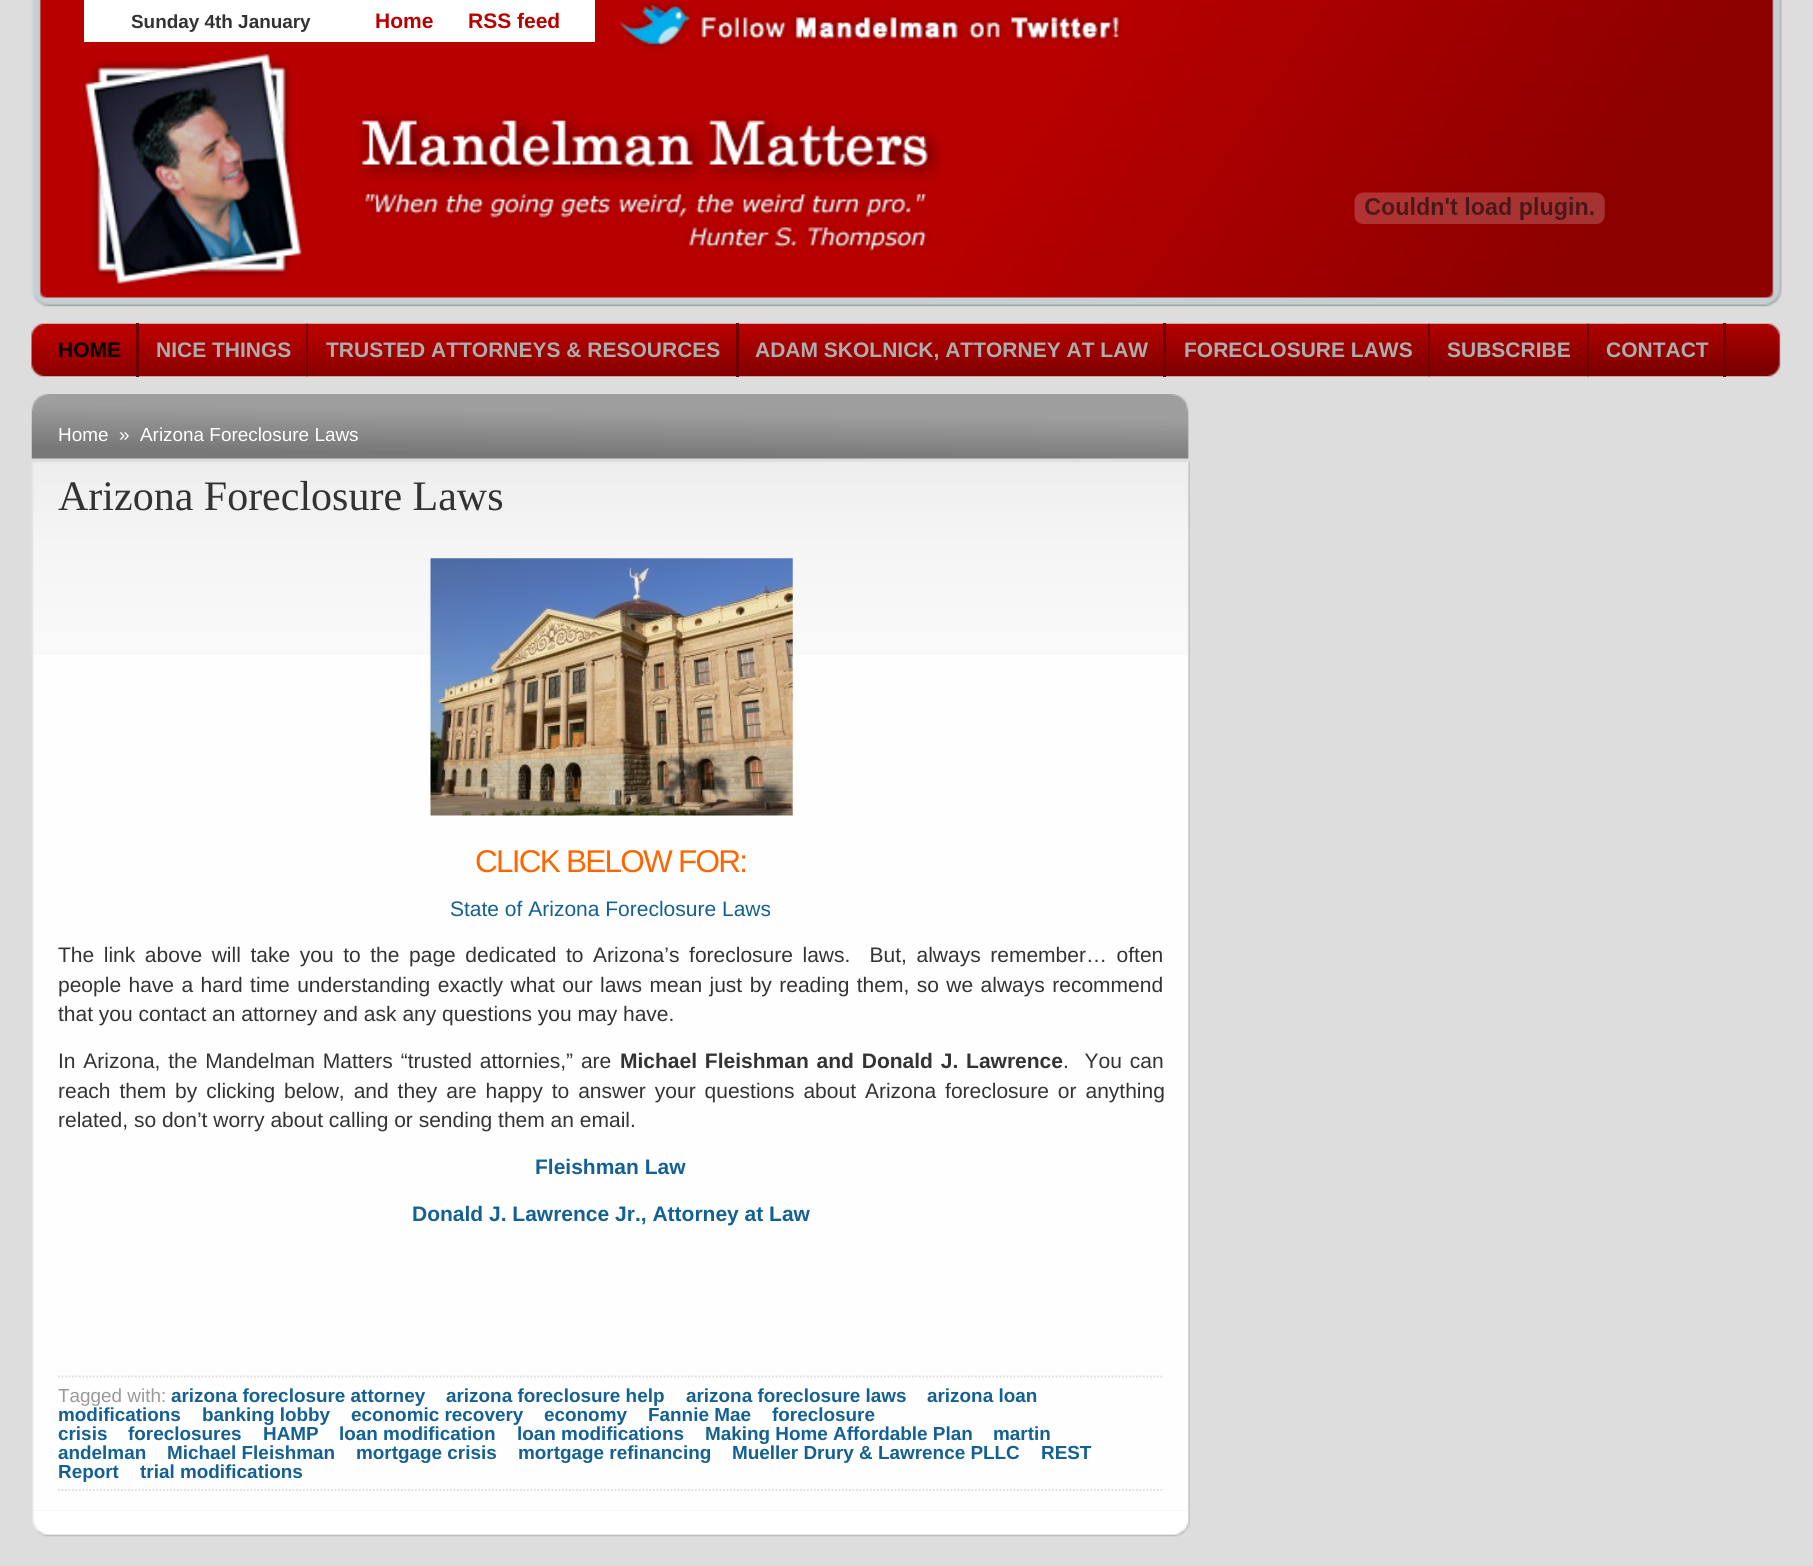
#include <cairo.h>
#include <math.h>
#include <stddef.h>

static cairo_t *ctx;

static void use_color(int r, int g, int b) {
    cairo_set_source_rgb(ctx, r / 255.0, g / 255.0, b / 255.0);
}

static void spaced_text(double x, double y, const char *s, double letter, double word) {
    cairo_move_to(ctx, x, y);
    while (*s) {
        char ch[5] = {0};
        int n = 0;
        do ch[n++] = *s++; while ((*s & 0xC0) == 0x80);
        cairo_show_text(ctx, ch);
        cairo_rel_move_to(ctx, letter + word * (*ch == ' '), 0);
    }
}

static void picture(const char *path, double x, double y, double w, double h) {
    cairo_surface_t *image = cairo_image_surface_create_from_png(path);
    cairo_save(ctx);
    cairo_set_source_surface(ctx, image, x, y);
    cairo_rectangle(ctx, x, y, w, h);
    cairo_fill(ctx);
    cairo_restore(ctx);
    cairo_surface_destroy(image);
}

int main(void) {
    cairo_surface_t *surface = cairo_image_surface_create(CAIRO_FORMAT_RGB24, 1813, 1566);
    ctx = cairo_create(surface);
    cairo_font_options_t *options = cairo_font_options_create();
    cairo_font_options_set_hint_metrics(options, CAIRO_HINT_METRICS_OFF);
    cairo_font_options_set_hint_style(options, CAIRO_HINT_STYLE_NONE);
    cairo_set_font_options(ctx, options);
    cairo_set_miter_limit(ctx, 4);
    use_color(221, 221, 221);
    cairo_paint(ctx);
    picture("img1.png", 31, 0, 1751, 307);
    use_color(255, 255, 255);
    cairo_rectangle(ctx, 84, 0, 511, 42);
    cairo_fill(ctx);
    cairo_select_font_face(ctx, "Liberation Sans", CAIRO_FONT_SLANT_NORMAL, CAIRO_FONT_WEIGHT_BOLD);
    cairo_set_font_size(ctx, 18.9);
    use_color(51, 51, 51);
    cairo_move_to(ctx, 131, 28);
    cairo_show_text(ctx, "Sunday 4th January");
    cairo_set_font_size(ctx, 21);
    use_color(184, 0, 0);
    cairo_move_to(ctx, 375, 28);
    cairo_show_text(ctx, "Home");
    cairo_move_to(ctx, 468, 28);
    cairo_show_text(ctx, "RSS feed");
    picture("img2.png", 619, 2, 504, 48);
    picture("img3.png", 357, 112, 586, 140);
    picture("img4.png", 1354, 192, 251, 32);
    picture("img5.png", 31, 323, 1750, 54);
    use_color(111, 0, 0);
    cairo_rectangle(ctx, 136, 323, 3, 54);
    cairo_fill(ctx);
    use_color(0, 0, 0);
    cairo_move_to(ctx, 58, 357);
    cairo_show_text(ctx, "HOME");
    picture("img6.png", 306, 323, 2, 54);
    use_color(173, 173, 173);
    cairo_move_to(ctx, 156, 357);
    cairo_show_text(ctx, "NICE THINGS");
    use_color(111, 0, 0);
    cairo_rectangle(ctx, 736, 323, 3, 54);
    cairo_fill(ctx);
    use_color(173, 173, 173);
    cairo_move_to(ctx, 326, 357);
    cairo_show_text(ctx, "TRUSTED ATTORNEYS & RESOURCES");
    use_color(111, 0, 0);
    cairo_rectangle(ctx, 1163, 323, 3, 54);
    cairo_fill(ctx);
    use_color(173, 173, 173);
    cairo_move_to(ctx, 755, 357);
    cairo_show_text(ctx, "ADAM SKOLNICK, ATTORNEY AT LAW");
    picture("img7.png", 1428, 323, 2, 54);
    cairo_move_to(ctx, 1184, 357);
    cairo_show_text(ctx, "FORECLOSURE LAWS");
    picture("img8.png", 1587, 323, 2, 54);
    cairo_move_to(ctx, 1447, 357);
    cairo_show_text(ctx, "SUBSCRIBE");
    use_color(111, 0, 0);
    cairo_rectangle(ctx, 1723, 323, 3, 54);
    cairo_fill(ctx);
    use_color(173, 173, 173);
    cairo_move_to(ctx, 1606, 357);
    cairo_show_text(ctx, "CONTACT");
    picture("img9.png", 32, 655, 1158, 856);
    picture("img10.png", 31, 394, 1159, 261);
    cairo_select_font_face(ctx, "Liberation Sans", CAIRO_FONT_SLANT_NORMAL, CAIRO_FONT_WEIGHT_NORMAL);
    cairo_set_font_size(ctx, 18.9);
    use_color(255, 255, 255);
    cairo_move_to(ctx, 58, 441);
    cairo_show_text(ctx, "Home");
    cairo_move_to(ctx, 119, 441);
    cairo_show_text(ctx, "»  Arizona Foreclosure Laws");
    cairo_select_font_face(ctx, "Liberation Serif", CAIRO_FONT_SLANT_NORMAL, CAIRO_FONT_WEIGHT_NORMAL);
    cairo_set_font_size(ctx, 42);
    use_color(51, 51, 51);
    cairo_move_to(ctx, 58, 510);
    cairo_show_text(ctx, "Arizona Foreclosure Laws");
    picture("img11.png", 430, 558, 363, 258);
    cairo_select_font_face(ctx, "Liberation Sans", CAIRO_FONT_SLANT_NORMAL, CAIRO_FONT_WEIGHT_NORMAL);
    cairo_set_font_size(ctx, 31.5);
    use_color(255, 102, 0);
    spaced_text(475, 872, "CLICK BELOW FOR:", -1.75, 0);
    cairo_set_font_size(ctx, 21);
    use_color(20, 96, 146);
    cairo_move_to(ctx, 450, 916);
    cairo_show_text(ctx, "State of Arizona Foreclosure Laws");
    use_color(51, 51, 51);
    spaced_text(58, 962, "The link above will take you to the page dedicated to Arizona’s foreclosure laws.  But, always remember… often", 0, 3.75);
    spaced_text(58, 992, "people have a hard time understanding exactly what our laws mean just by reading them, so we always recommend", 0, 1.6);
    cairo_move_to(ctx, 58, 1021);
    cairo_show_text(ctx, "that you contact an attorney and ask any questions you may have.");
    spaced_text(58, 1068, "In Arizona, the Mandelman Matters “trusted attornies,” are", 0, 2);
    cairo_select_font_face(ctx, "Liberation Sans", CAIRO_FONT_SLANT_NORMAL, CAIRO_FONT_WEIGHT_BOLD);
    spaced_text(620, 1068, "Michael Fleishman and Donald J. Lawrence", 0, 2);
    cairo_select_font_face(ctx, "Liberation Sans", CAIRO_FONT_SLANT_NORMAL, CAIRO_FONT_WEIGHT_NORMAL);
    spaced_text(1063, 1068, ".  You can", 0, 2);
    spaced_text(58, 1098, "reach them by clicking below, and they are happy to answer your questions about Arizona foreclosure or anything", 0, 3.1);
    cairo_move_to(ctx, 58, 1127);
    cairo_show_text(ctx, "related, so don’t worry about calling or sending them an email.");
    cairo_select_font_face(ctx, "Liberation Sans", CAIRO_FONT_SLANT_NORMAL, CAIRO_FONT_WEIGHT_BOLD);
    use_color(20, 96, 146);
    cairo_move_to(ctx, 535, 1174);
    cairo_show_text(ctx, "Fleishman Law");
    cairo_move_to(ctx, 412, 1221);
    cairo_show_text(ctx, "Donald J. Lawrence Jr., Attorney at Law");
    cairo_new_path(ctx);
    cairo_move_to(ctx, 58, 1376.5);
    cairo_line_to(ctx, 1164, 1376.5);
    use_color(221, 221, 221);
    cairo_set_line_width(ctx, 1.8);
    cairo_set_dash(ctx, (double[]){1.75, 1.75}, 2, 0);
    cairo_stroke(ctx);
    cairo_new_path(ctx);
    cairo_move_to(ctx, 58, 1490);
    cairo_line_to(ctx, 1164, 1490);
    cairo_stroke(ctx);
    cairo_select_font_face(ctx, "Liberation Sans", CAIRO_FONT_SLANT_NORMAL, CAIRO_FONT_WEIGHT_NORMAL);
    cairo_set_font_size(ctx, 18.9);
    use_color(153, 153, 153);
    cairo_move_to(ctx, 58, 1402);
    cairo_show_text(ctx, "Tagged with:");
    cairo_select_font_face(ctx, "Liberation Sans", CAIRO_FONT_SLANT_NORMAL, CAIRO_FONT_WEIGHT_BOLD);
    use_color(20, 96, 146);
    cairo_move_to(ctx, 171, 1402);
    cairo_show_text(ctx, "arizona foreclosure attorney");
    cairo_move_to(ctx, 446, 1402);
    cairo_show_text(ctx, "arizona foreclosure help");
    cairo_move_to(ctx, 686, 1402);
    cairo_show_text(ctx, "arizona foreclosure laws");
    cairo_move_to(ctx, 927, 1402);
    cairo_show_text(ctx, "arizona loan");
    cairo_move_to(ctx, 58, 1421);
    cairo_show_text(ctx, "modifications");
    cairo_move_to(ctx, 202, 1421);
    cairo_show_text(ctx, "banking lobby");
    cairo_move_to(ctx, 351, 1421);
    cairo_show_text(ctx, "economic recovery");
    cairo_move_to(ctx, 544, 1421);
    cairo_show_text(ctx, "economy");
    cairo_move_to(ctx, 648, 1421);
    cairo_show_text(ctx, "Fannie Mae");
    cairo_move_to(ctx, 772, 1421);
    cairo_show_text(ctx, "foreclosure");
    cairo_move_to(ctx, 58, 1440);
    cairo_show_text(ctx, "crisis");
    cairo_move_to(ctx, 128, 1440);
    cairo_show_text(ctx, "foreclosures");
    cairo_move_to(ctx, 263, 1440);
    cairo_show_text(ctx, "HAMP");
    cairo_move_to(ctx, 339, 1440);
    cairo_show_text(ctx, "loan modification");
    cairo_move_to(ctx, 517, 1440);
    cairo_show_text(ctx, "loan modifications");
    cairo_move_to(ctx, 705, 1440);
    cairo_show_text(ctx, "Making Home Affordable Plan");
    cairo_move_to(ctx, 993, 1440);
    cairo_show_text(ctx, "martin");
    cairo_move_to(ctx, 58, 1459);
    cairo_show_text(ctx, "andelman");
    cairo_move_to(ctx, 167, 1459);
    cairo_show_text(ctx, "Michael Fleishman");
    cairo_move_to(ctx, 356, 1459);
    cairo_show_text(ctx, "mortgage crisis");
    cairo_move_to(ctx, 518, 1459);
    cairo_show_text(ctx, "mortgage refinancing");
    cairo_move_to(ctx, 732, 1459);
    cairo_show_text(ctx, "Mueller Drury & Lawrence PLLC");
    cairo_move_to(ctx, 1041, 1459);
    cairo_show_text(ctx, "REST");
    cairo_move_to(ctx, 58, 1478);
    cairo_show_text(ctx, "Report");
    cairo_move_to(ctx, 140, 1478);
    cairo_show_text(ctx, "trial modifications");
    picture("img12.png", 32, 1510, 1158, 27);
    cairo_surface_write_to_png(surface, "result.png");
    cairo_font_options_destroy(options);
    cairo_destroy(ctx);
    cairo_surface_destroy(surface);
    return 0;
}
